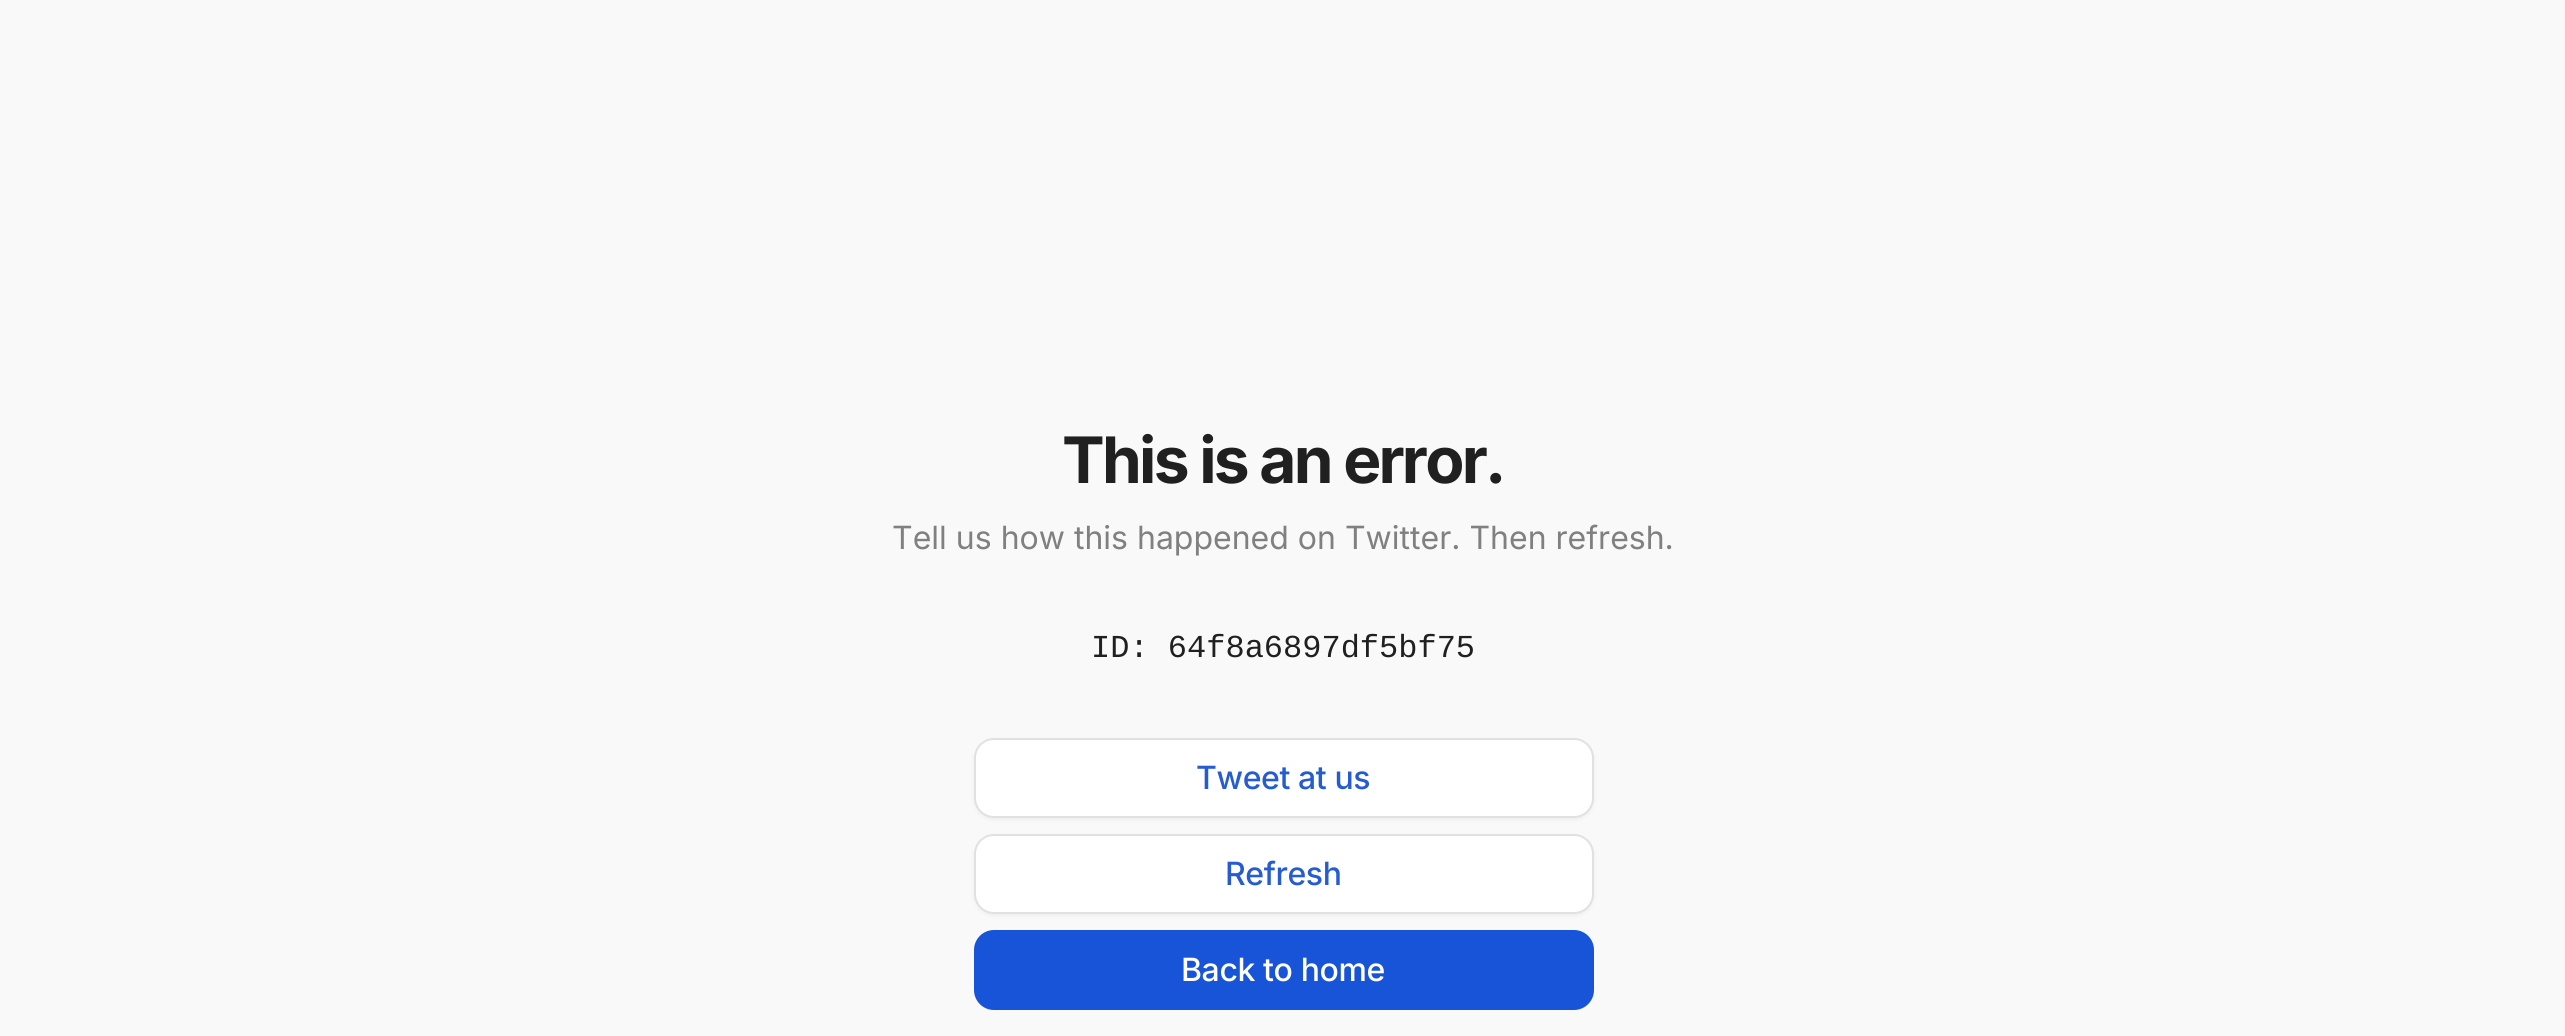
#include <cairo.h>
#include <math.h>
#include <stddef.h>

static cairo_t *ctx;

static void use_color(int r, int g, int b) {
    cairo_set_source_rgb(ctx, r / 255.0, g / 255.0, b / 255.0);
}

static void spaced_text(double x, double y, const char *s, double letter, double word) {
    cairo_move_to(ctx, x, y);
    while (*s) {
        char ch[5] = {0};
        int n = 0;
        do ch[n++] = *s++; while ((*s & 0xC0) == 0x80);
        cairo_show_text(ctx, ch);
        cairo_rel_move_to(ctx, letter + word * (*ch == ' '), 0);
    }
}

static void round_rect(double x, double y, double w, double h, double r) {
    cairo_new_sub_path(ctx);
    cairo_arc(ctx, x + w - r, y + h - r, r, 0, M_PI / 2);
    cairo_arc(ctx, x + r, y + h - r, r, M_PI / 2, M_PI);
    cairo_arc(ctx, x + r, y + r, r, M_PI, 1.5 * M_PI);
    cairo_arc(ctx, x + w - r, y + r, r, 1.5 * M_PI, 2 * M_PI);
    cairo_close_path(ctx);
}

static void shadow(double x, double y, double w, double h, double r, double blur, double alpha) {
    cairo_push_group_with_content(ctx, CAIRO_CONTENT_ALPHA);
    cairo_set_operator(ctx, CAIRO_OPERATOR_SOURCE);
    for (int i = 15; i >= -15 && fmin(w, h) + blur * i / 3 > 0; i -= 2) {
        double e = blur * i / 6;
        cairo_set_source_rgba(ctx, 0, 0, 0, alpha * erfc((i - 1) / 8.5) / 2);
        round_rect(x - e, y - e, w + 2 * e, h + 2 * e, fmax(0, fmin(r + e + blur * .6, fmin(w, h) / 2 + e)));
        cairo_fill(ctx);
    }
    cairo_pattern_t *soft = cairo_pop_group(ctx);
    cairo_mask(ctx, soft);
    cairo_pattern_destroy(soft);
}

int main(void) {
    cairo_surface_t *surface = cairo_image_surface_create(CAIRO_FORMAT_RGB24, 2565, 1036);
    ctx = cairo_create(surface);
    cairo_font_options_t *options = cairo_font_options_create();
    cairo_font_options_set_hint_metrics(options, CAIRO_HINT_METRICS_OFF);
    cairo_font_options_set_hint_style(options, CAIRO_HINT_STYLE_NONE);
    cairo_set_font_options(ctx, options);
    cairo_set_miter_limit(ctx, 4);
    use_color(249, 249, 249);
    cairo_paint(ctx);
    cairo_select_font_face(ctx, "Inter", CAIRO_FONT_SLANT_NORMAL, CAIRO_FONT_WEIGHT_BOLD);
    cairo_set_font_size(ctx, 64);
    use_color(32, 32, 32);
    spaced_text(1062, 483, "This is an error.", -2.75, 0);
    cairo_select_font_face(ctx, "Inter", CAIRO_FONT_SLANT_NORMAL, CAIRO_FONT_WEIGHT_NORMAL);
    cairo_set_font_size(ctx, 32);
    use_color(128, 128, 128);
    cairo_move_to(ctx, 892, 549);
    cairo_show_text(ctx, "Tell us how this happened on Twitter. Then refresh.");
    cairo_select_font_face(ctx, "Liberation Mono", CAIRO_FONT_SLANT_NORMAL, CAIRO_FONT_WEIGHT_NORMAL);
    use_color(32, 32, 32);
    cairo_move_to(ctx, 1091, 657);
    cairo_show_text(ctx, "ID: 64f8a6897df5bf75");
    use_color(0, 0, 0);
    shadow(974, 740, 620, 80, 20, 2, 0.05);
    use_color(255, 255, 255);
    round_rect(974, 738, 620, 80, 20);
    cairo_fill(ctx);
    round_rect(975, 739, 618, 78, 19);
    cairo_set_source_rgba(ctx, 0, 0, 0, 0.12);
    cairo_stroke(ctx);
    cairo_select_font_face(ctx, "Inter Medium", CAIRO_FONT_SLANT_NORMAL, CAIRO_FONT_WEIGHT_NORMAL);
    use_color(38, 92, 207);
    spaced_text(1196, 789, "Tweet at us", -0.4, 0);
    use_color(0, 0, 0);
    shadow(974, 836, 620, 80, 20, 2, 0.05);
    use_color(255, 255, 255);
    round_rect(974, 834, 620, 80, 20);
    cairo_fill(ctx);
    round_rect(975, 835, 618, 78, 19);
    cairo_set_source_rgba(ctx, 0, 0, 0, 0.12);
    cairo_stroke(ctx);
    use_color(38, 92, 207);
    spaced_text(1225, 885, "Refresh", -0.4, 0);
    use_color(23, 84, 216);
    round_rect(974, 930, 620, 80, 20);
    cairo_fill(ctx);
    use_color(255, 255, 255);
    spaced_text(1181, 981, "Back to home", -0.4, 0);
    cairo_surface_write_to_png(surface, "result.png");
    cairo_font_options_destroy(options);
    cairo_destroy(ctx);
    cairo_surface_destroy(surface);
    return 0;
}
